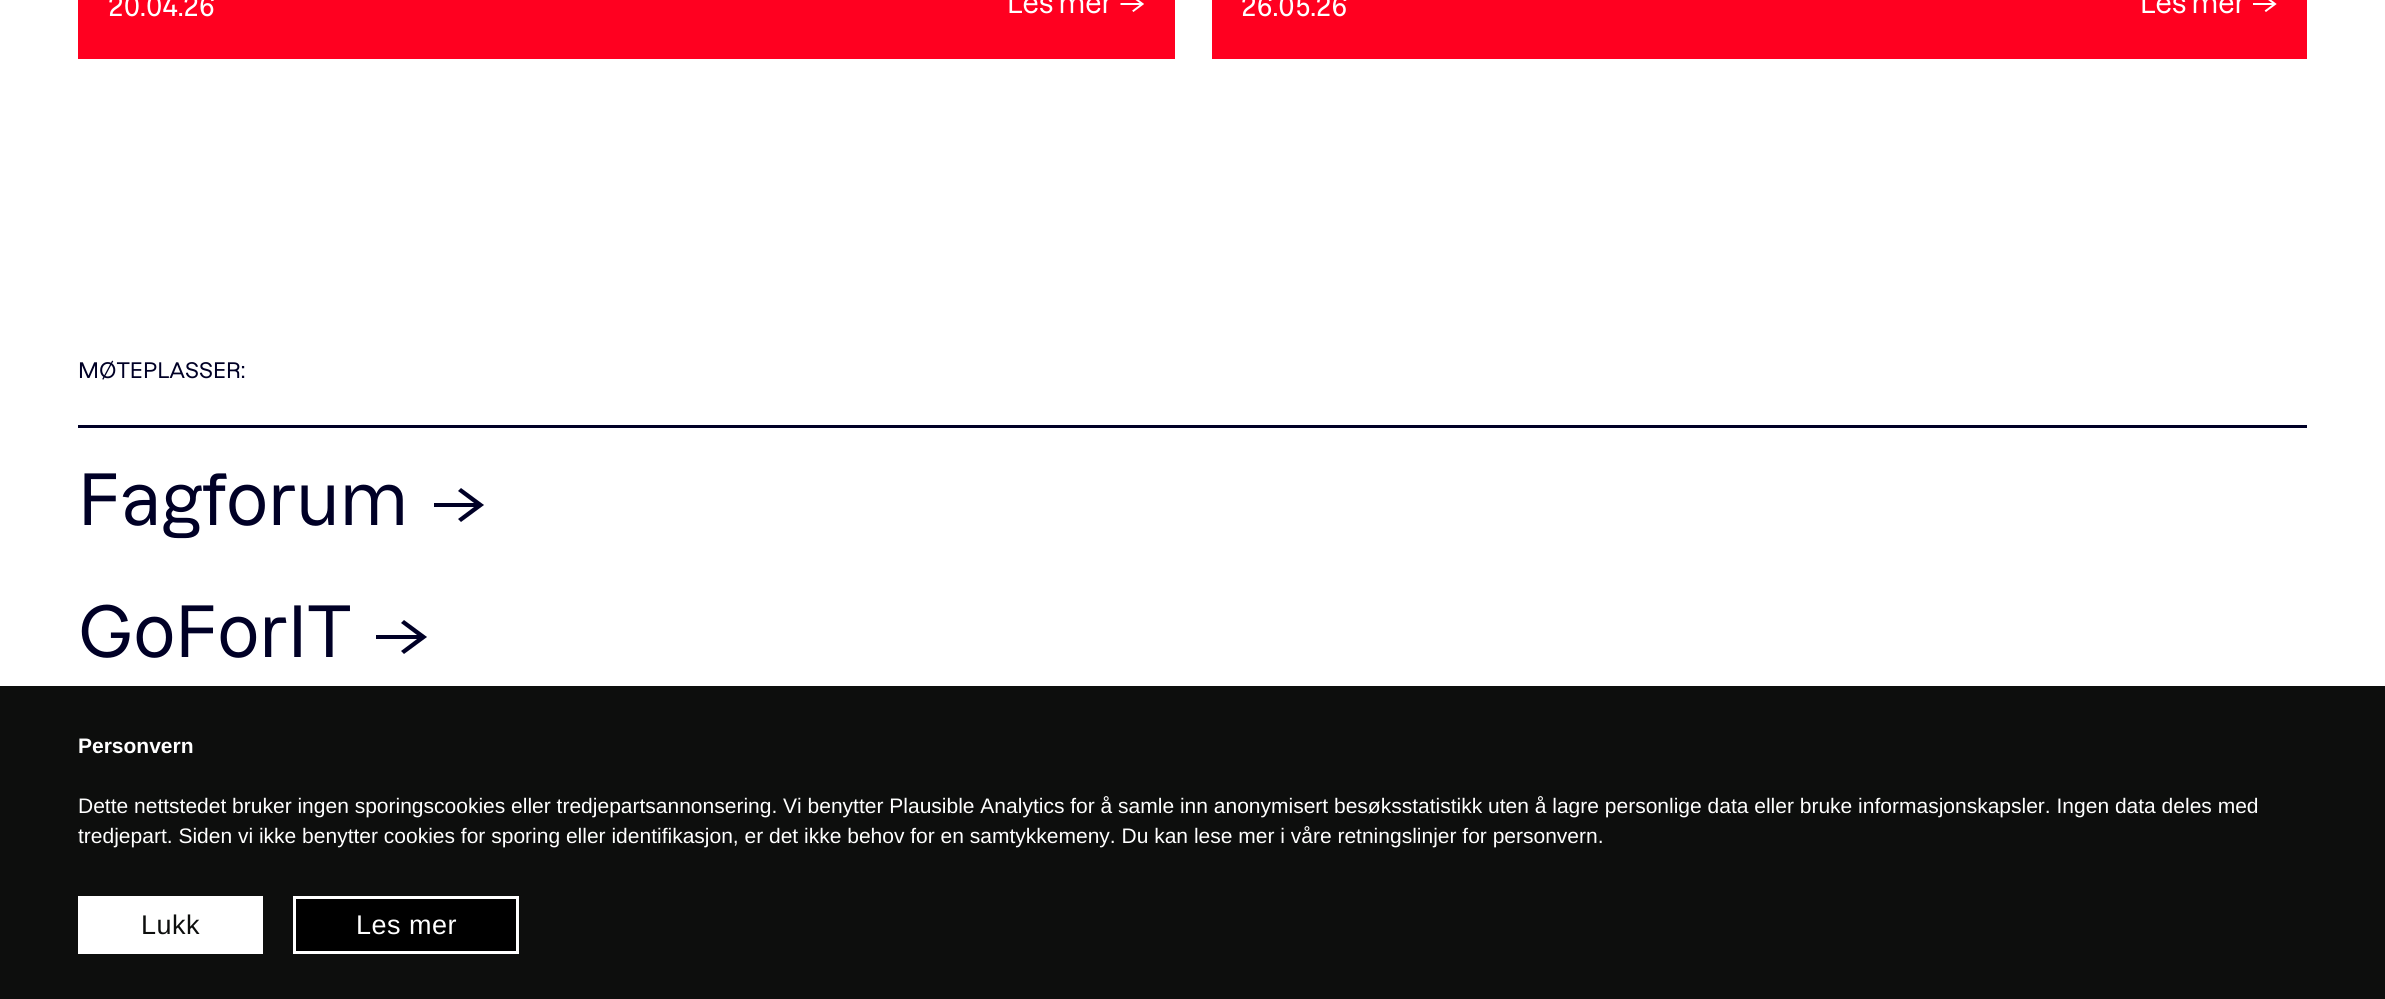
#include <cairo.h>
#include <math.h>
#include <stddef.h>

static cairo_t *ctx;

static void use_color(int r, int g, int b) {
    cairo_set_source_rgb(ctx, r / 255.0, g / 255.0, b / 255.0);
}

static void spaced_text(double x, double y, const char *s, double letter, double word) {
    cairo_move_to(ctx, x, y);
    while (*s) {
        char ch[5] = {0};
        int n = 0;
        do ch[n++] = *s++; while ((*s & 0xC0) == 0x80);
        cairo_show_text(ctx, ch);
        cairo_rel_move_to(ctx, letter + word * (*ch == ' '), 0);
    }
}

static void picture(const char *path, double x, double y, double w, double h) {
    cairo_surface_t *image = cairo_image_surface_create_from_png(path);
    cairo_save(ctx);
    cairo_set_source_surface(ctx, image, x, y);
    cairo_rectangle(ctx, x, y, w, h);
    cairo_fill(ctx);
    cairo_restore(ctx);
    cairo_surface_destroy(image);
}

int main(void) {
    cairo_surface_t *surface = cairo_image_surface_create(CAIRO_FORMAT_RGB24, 2385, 999);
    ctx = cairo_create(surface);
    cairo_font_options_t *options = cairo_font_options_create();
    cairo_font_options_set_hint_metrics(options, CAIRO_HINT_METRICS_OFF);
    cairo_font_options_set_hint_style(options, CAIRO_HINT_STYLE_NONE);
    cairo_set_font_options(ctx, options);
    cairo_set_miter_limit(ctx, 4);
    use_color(255, 255, 255);
    cairo_paint(ctx);
    use_color(255, 0, 32);
    cairo_rectangle(ctx, 78, 0, 1097, 59);
    cairo_fill(ctx);
    cairo_select_font_face(ctx, "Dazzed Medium", CAIRO_FONT_SLANT_NORMAL, CAIRO_FONT_WEIGHT_NORMAL);
    cairo_set_font_size(ctx, 27);
    use_color(255, 255, 255);
    cairo_move_to(ctx, 108, 16);
    cairo_show_text(ctx, "20.04.26");
    cairo_move_to(ctx, 1007, 13);
    cairo_show_text(ctx, "Les mer");
    picture("img1.png", 1120, 0, 24, 12);
    use_color(255, 0, 32);
    cairo_rectangle(ctx, 1212, 0, 1095, 59);
    cairo_fill(ctx);
    use_color(255, 255, 255);
    cairo_move_to(ctx, 1241, 16);
    cairo_show_text(ctx, "26.05.26");
    cairo_move_to(ctx, 2140, 13);
    cairo_show_text(ctx, "Les mer");
    picture("img2.png", 2253, 0, 24, 12);
    use_color(0, 0, 38);
    cairo_rectangle(ctx, 78, 425, 2229, 3);
    cairo_fill(ctx);
    cairo_set_font_size(ctx, 21);
    cairo_move_to(ctx, 78, 378);
    cairo_show_text(ctx, "MØTEPLASSER:");
    cairo_set_font_size(ctx, 69);
    cairo_move_to(ctx, 78, 525);
    cairo_show_text(ctx, "Fagforum");
    cairo_new_path(ctx);
    cairo_move_to(ctx, 458, 491);
    cairo_line_to(ctx, 474, 503);
    cairo_line_to(ctx, 434, 503);
    cairo_line_to(ctx, 434, 507);
    cairo_line_to(ctx, 474, 507);
    cairo_line_to(ctx, 458, 519);
    cairo_line_to(ctx, 461, 522);
    cairo_line_to(ctx, 484, 505);
    cairo_line_to(ctx, 461, 488);
    cairo_close_path(ctx);
    cairo_fill(ctx);
    cairo_move_to(ctx, 78, 657);
    cairo_show_text(ctx, "GoForIT");
    cairo_new_path(ctx);
    cairo_move_to(ctx, 401, 623);
    cairo_line_to(ctx, 417, 635);
    cairo_line_to(ctx, 376, 635);
    cairo_line_to(ctx, 376, 639);
    cairo_line_to(ctx, 417, 639);
    cairo_line_to(ctx, 401, 651);
    cairo_line_to(ctx, 404, 654);
    cairo_line_to(ctx, 427, 637);
    cairo_line_to(ctx, 404, 620);
    cairo_close_path(ctx);
    cairo_fill(ctx);
    use_color(13, 14, 13);
    cairo_rectangle(ctx, 0, 686, 2385, 313);
    cairo_fill(ctx);
    cairo_select_font_face(ctx, "Liberation Sans", CAIRO_FONT_SLANT_NORMAL, CAIRO_FONT_WEIGHT_BOLD);
    cairo_set_font_size(ctx, 21);
    use_color(255, 255, 255);
    cairo_move_to(ctx, 78, 753);
    cairo_show_text(ctx, "Personvern");
    cairo_select_font_face(ctx, "Liberation Sans", CAIRO_FONT_SLANT_NORMAL, CAIRO_FONT_WEIGHT_NORMAL);
    cairo_move_to(ctx, 78, 813);
    cairo_show_text(ctx, "Dette nettstedet bruker ingen sporingscookies eller tredjepartsannonsering. Vi benytter Plausible Analytics for å samle inn anonymisert besøksstatistikk uten å lagre personlige data eller bruke informasjonskapsler. Ingen data deles med");
    cairo_move_to(ctx, 78, 843);
    cairo_show_text(ctx, "tredjepart. Siden vi ikke benytter cookies for sporing eller identifikasjon, er det ikke behov for en samtykkemeny. Du kan lese mer i våre retningslinjer for personvern.");
    cairo_rectangle(ctx, 78, 896, 185, 58);
    cairo_fill(ctx);
    cairo_set_font_size(ctx, 27);
    use_color(13, 14, 13);
    spaced_text(141, 934, "Lukk", 0.5, 0);
    use_color(0, 0, 0);
    cairo_rectangle(ctx, 294.5, 897.5, 223, 55);
    cairo_fill_preserve(ctx);
    use_color(255, 255, 255);
    cairo_set_line_width(ctx, 3);
    cairo_stroke(ctx);
    spaced_text(356, 934, "Les mer", 0.5, 0);
    cairo_surface_write_to_png(surface, "result.png");
    cairo_font_options_destroy(options);
    cairo_destroy(ctx);
    cairo_surface_destroy(surface);
    return 0;
}
